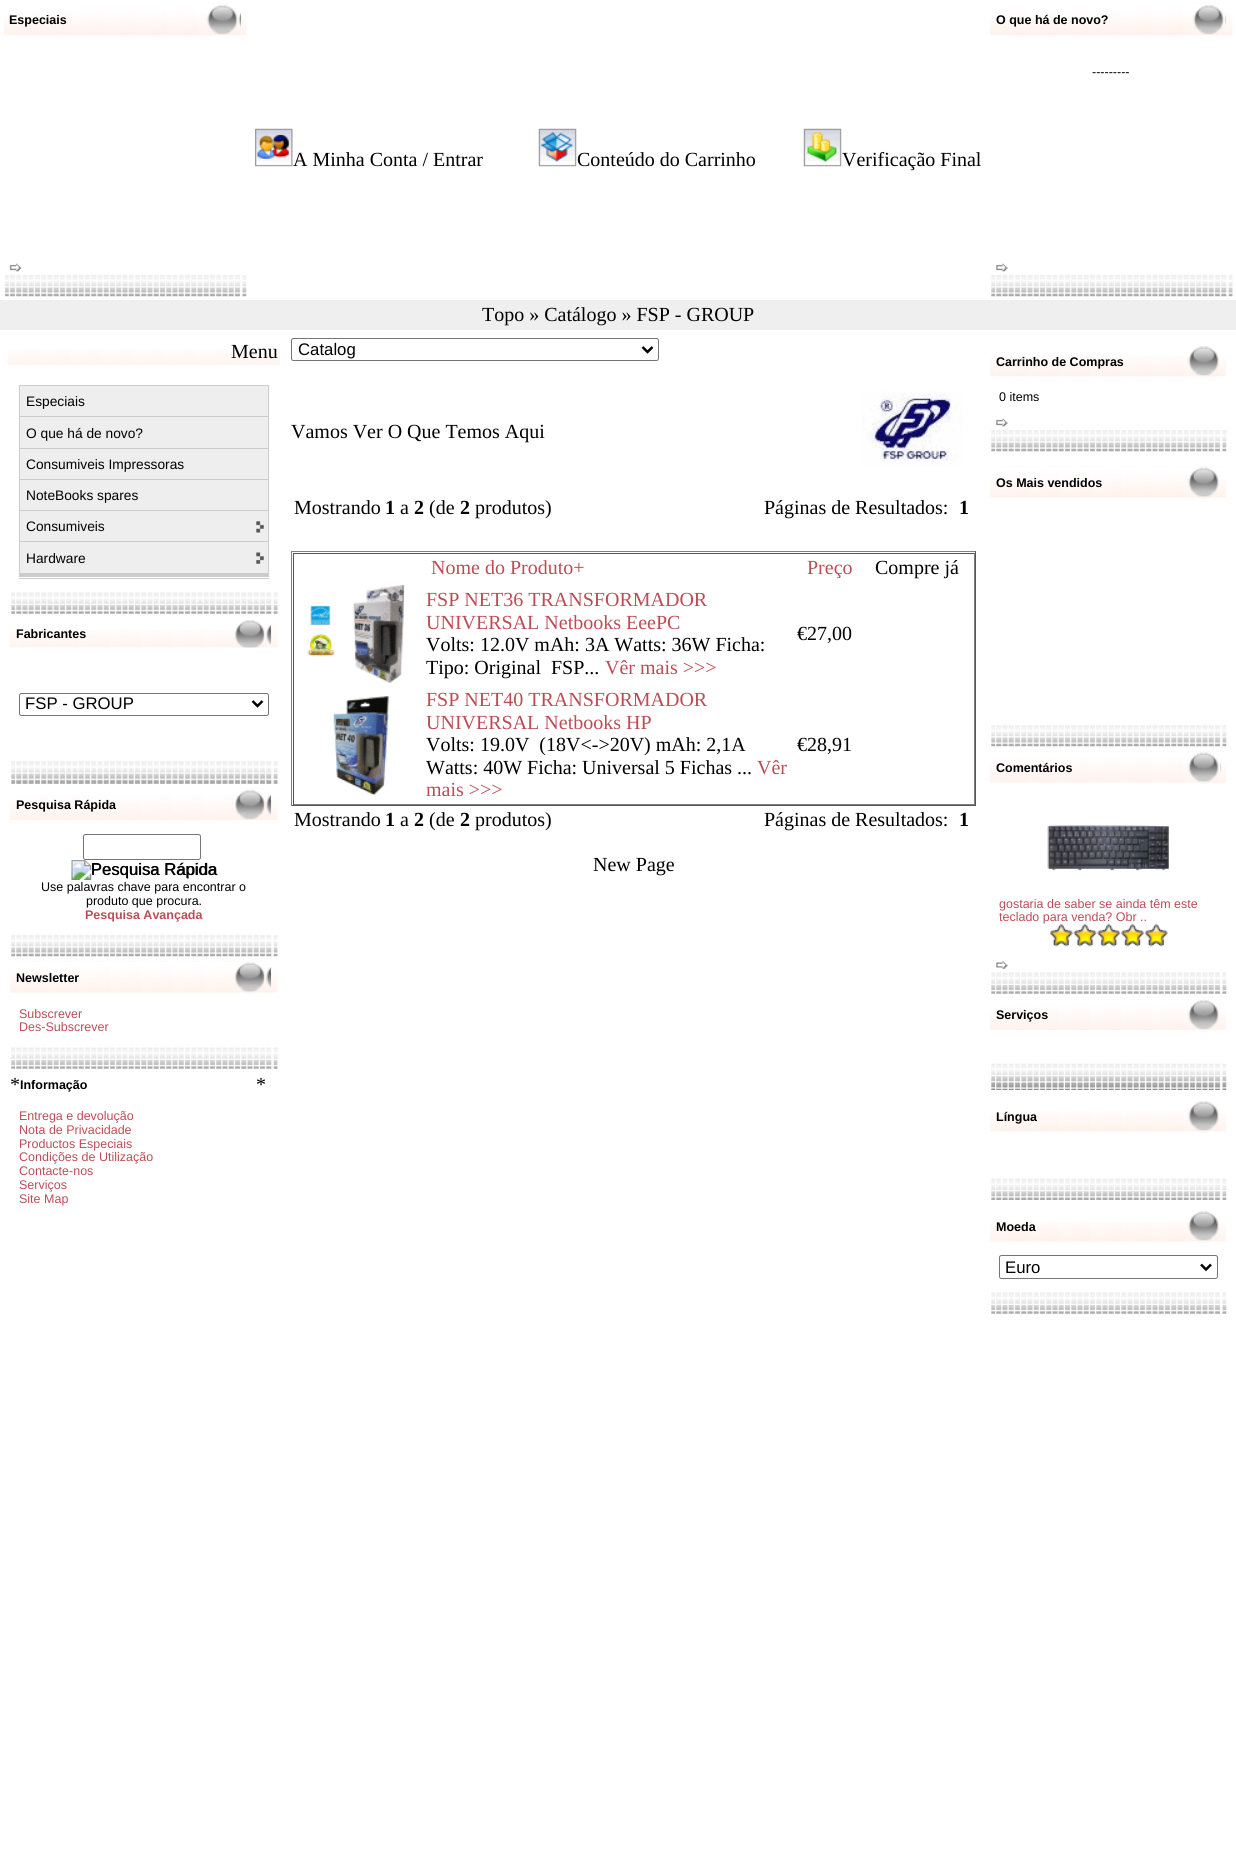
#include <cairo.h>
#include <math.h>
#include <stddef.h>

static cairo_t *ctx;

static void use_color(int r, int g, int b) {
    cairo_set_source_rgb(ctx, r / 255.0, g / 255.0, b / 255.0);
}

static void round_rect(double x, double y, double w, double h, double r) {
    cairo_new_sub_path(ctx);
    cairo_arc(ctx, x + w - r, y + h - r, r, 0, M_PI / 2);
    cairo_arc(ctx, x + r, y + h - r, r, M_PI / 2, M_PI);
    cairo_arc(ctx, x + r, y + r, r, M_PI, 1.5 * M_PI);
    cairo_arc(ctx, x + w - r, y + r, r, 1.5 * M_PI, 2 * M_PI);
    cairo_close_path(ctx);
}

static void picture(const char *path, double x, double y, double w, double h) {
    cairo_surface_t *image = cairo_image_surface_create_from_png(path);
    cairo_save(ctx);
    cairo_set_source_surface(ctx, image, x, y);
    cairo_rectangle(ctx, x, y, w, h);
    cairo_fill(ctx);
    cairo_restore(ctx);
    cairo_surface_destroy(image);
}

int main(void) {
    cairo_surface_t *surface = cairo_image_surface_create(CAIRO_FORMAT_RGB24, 1236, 1874);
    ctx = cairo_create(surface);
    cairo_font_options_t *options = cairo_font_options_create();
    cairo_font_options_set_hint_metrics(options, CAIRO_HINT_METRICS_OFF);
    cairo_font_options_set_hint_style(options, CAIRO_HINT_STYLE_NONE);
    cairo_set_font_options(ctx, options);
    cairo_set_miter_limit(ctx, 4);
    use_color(255, 255, 255);
    cairo_paint(ctx);
    picture("img1.png", 3, 16, 7, 19);
    picture("img2.png", 10, 3, 197, 32);
    cairo_select_font_face(ctx, "Liberation Sans", CAIRO_FONT_SLANT_NORMAL, CAIRO_FONT_WEIGHT_BOLD);
    cairo_set_font_size(ctx, 12.5);
    use_color(0, 0, 0);
    cairo_move_to(ctx, 9, 24);
    cairo_show_text(ctx, "Especiais");
    picture("img3.png", 206, 3, 36, 34);
    picture("img4.png", 241, 11, 6, 24);
    use_color(255, 255, 255);
    cairo_rectangle(ctx, 218, 36, 9, 1);
    cairo_fill(ctx);
    picture("img5.png", 9, 263, 13, 9);
    picture("img6.png", 4, 275, 5, 22);
    picture("img7.png", 9, 275, 233, 22);
    picture("img8.png", 241, 275, 6, 22);
    picture("img9.png", 990, 17, 5, 18);
    picture("img10.png", 995, 3, 198, 32);
    use_color(0, 0, 0);
    cairo_move_to(ctx, 996, 24);
    cairo_show_text(ctx, "O que há de novo?");
    picture("img11.png", 1192, 3, 35, 33);
    picture("img12.png", 1226, 14, 7, 21);
    cairo_select_font_face(ctx, "Liberation Sans", CAIRO_FONT_SLANT_NORMAL, CAIRO_FONT_WEIGHT_NORMAL);
    cairo_move_to(ctx, 1092, 76);
    cairo_show_text(ctx, "---------");
    picture("img13.png", 996, 263, 12, 9);
    picture("img14.png", 991, 275, 4, 22);
    picture("img15.png", 995, 275, 233, 22);
    picture("img16.png", 1227, 275, 6, 22);
    picture("img17.png", 255, 128, 38, 39);
    cairo_select_font_face(ctx, "Liberation Serif", CAIRO_FONT_SLANT_NORMAL, CAIRO_FONT_WEIGHT_NORMAL);
    cairo_set_font_size(ctx, 20);
    cairo_move_to(ctx, 293, 166);
    cairo_show_text(ctx, "A Minha Conta / Entrar");
    picture("img18.png", 538, 128, 39, 39);
    cairo_move_to(ctx, 577, 166);
    cairo_show_text(ctx, "Conteúdo do Carrinho");
    picture("img19.png", 803, 128, 39, 39);
    cairo_move_to(ctx, 842, 166);
    cairo_show_text(ctx, "Verificação Final");
    use_color(239, 239, 239);
    cairo_rectangle(ctx, 0, 300, 1236, 30);
    cairo_fill(ctx);
    use_color(0, 0, 0);
    cairo_move_to(ctx, 482, 321);
    cairo_show_text(ctx, "Topo » Catálogo » FSP - GROUP");
    picture("img20.png", 7, 349, 273, 16);
    cairo_move_to(ctx, 231, 358);
    cairo_show_text(ctx, "Menu");
    use_color(204, 204, 204);
    cairo_rectangle(ctx, 19, 578, 250, 1);
    cairo_fill(ctx);
    use_color(238, 238, 238);
    cairo_rectangle(ctx, 20, 386, 248, 30);
    cairo_fill(ctx);
    use_color(204, 204, 204);
    cairo_rectangle(ctx, 19, 385, 250, 1);
    cairo_fill(ctx);
    cairo_rectangle(ctx, 268, 385, 1, 31);
    cairo_fill(ctx);
    cairo_rectangle(ctx, 19, 385, 1, 31);
    cairo_fill(ctx);
    cairo_select_font_face(ctx, "Liberation Sans", CAIRO_FONT_SLANT_NORMAL, CAIRO_FONT_WEIGHT_NORMAL);
    cairo_set_font_size(ctx, 13.75);
    use_color(0, 0, 0);
    cairo_move_to(ctx, 26, 406);
    cairo_show_text(ctx, "Especiais");
    use_color(238, 238, 238);
    cairo_rectangle(ctx, 20, 417, 248, 31);
    cairo_fill(ctx);
    use_color(204, 204, 204);
    cairo_rectangle(ctx, 19, 416, 250, 1);
    cairo_fill(ctx);
    cairo_rectangle(ctx, 268, 416, 1, 32);
    cairo_fill(ctx);
    cairo_rectangle(ctx, 19, 416, 1, 32);
    cairo_fill(ctx);
    use_color(0, 0, 0);
    cairo_move_to(ctx, 26, 438);
    cairo_show_text(ctx, "O que há de novo?");
    use_color(238, 238, 238);
    cairo_rectangle(ctx, 20, 449, 248, 30);
    cairo_fill(ctx);
    use_color(204, 204, 204);
    cairo_rectangle(ctx, 19, 448, 250, 1);
    cairo_fill(ctx);
    cairo_rectangle(ctx, 268, 448, 1, 31);
    cairo_fill(ctx);
    cairo_rectangle(ctx, 19, 448, 1, 31);
    cairo_fill(ctx);
    use_color(0, 0, 0);
    cairo_move_to(ctx, 26, 469);
    cairo_show_text(ctx, "Consumiveis Impressoras");
    use_color(238, 238, 238);
    cairo_rectangle(ctx, 20, 480, 248, 30);
    cairo_fill(ctx);
    use_color(204, 204, 204);
    cairo_rectangle(ctx, 19, 479, 250, 1);
    cairo_fill(ctx);
    cairo_rectangle(ctx, 268, 479, 1, 31);
    cairo_fill(ctx);
    cairo_rectangle(ctx, 19, 479, 1, 31);
    cairo_fill(ctx);
    use_color(0, 0, 0);
    cairo_move_to(ctx, 26, 500);
    cairo_show_text(ctx, "NoteBooks spares");
    use_color(238, 238, 238);
    cairo_rectangle(ctx, 20, 511, 248, 30);
    cairo_fill(ctx);
    picture("img21.png", 256, 521, 8, 12);
    use_color(204, 204, 204);
    cairo_rectangle(ctx, 19, 510, 250, 1);
    cairo_fill(ctx);
    cairo_rectangle(ctx, 268, 510, 1, 31);
    cairo_fill(ctx);
    cairo_rectangle(ctx, 19, 510, 1, 31);
    cairo_fill(ctx);
    use_color(0, 0, 0);
    cairo_move_to(ctx, 26, 531);
    cairo_show_text(ctx, "Consumiveis");
    use_color(238, 238, 238);
    cairo_rectangle(ctx, 20, 542, 248, 31);
    cairo_fill(ctx);
    picture("img22.png", 256, 552, 8, 12);
    use_color(204, 204, 204);
    cairo_rectangle(ctx, 19, 541, 250, 1);
    cairo_fill(ctx);
    cairo_rectangle(ctx, 268, 541, 1, 32);
    cairo_fill(ctx);
    cairo_rectangle(ctx, 19, 541, 1, 32);
    cairo_fill(ctx);
    use_color(0, 0, 0);
    cairo_move_to(ctx, 26, 563);
    cairo_show_text(ctx, "Hardware");
    use_color(204, 204, 204);
    cairo_rectangle(ctx, 19, 573, 250, 4);
    cairo_fill(ctx);
    picture("img23.png", 11, 592, 4, 22);
    picture("img24.png", 15, 592, 258, 22);
    picture("img25.png", 272, 592, 6, 22);
    picture("img26.png", 10, 631, 7, 17);
    picture("img27.png", 16, 630, 218, 18);
    cairo_select_font_face(ctx, "Liberation Sans", CAIRO_FONT_SLANT_NORMAL, CAIRO_FONT_WEIGHT_BOLD);
    cairo_set_font_size(ctx, 12.5);
    use_color(0, 0, 0);
    cairo_move_to(ctx, 16, 638);
    cairo_show_text(ctx, "Fabricantes");
    picture("img28.png", 233, 620, 39, 28);
    picture("img29.png", 271, 624, 7, 24);
    round_rect(19.5, 693.5, 249, 22, 2);
    use_color(118, 118, 118);
    cairo_set_line_width(ctx, 1);
    cairo_stroke(ctx);
    cairo_new_path(ctx);
    cairo_move_to(ctx, 252.5, 701);
    cairo_line_to(ctx, 257.5, 706);
    cairo_line_to(ctx, 262.5, 701);
    use_color(0, 0, 0);
    cairo_set_line_width(ctx, 2.5);
    cairo_stroke(ctx);
    cairo_select_font_face(ctx, "Liberation Sans", CAIRO_FONT_SLANT_NORMAL, CAIRO_FONT_WEIGHT_NORMAL);
    cairo_set_font_size(ctx, 16.75);
    cairo_move_to(ctx, 25, 709);
    cairo_show_text(ctx, "FSP - GROUP");
    picture("img30.png", 11, 761, 4, 23);
    picture("img31.png", 15, 761, 258, 23);
    picture("img32.png", 272, 761, 6, 23);
    picture("img33.png", 10, 801, 7, 19);
    picture("img34.png", 16, 788, 218, 32);
    cairo_select_font_face(ctx, "Liberation Sans", CAIRO_FONT_SLANT_NORMAL, CAIRO_FONT_WEIGHT_BOLD);
    cairo_set_font_size(ctx, 12.5);
    cairo_move_to(ctx, 16, 809);
    cairo_show_text(ctx, "Pesquisa Rápida");
    picture("img35.png", 233, 788, 39, 33);
    picture("img36.png", 271, 794, 7, 26);
    round_rect(83.5, 834.5, 117, 25, 2);
    use_color(118, 118, 118);
    cairo_set_line_width(ctx, 1);
    cairo_stroke(ctx);
    picture("img37.png", 71, 860, 146, 20);
    cairo_select_font_face(ctx, "Liberation Sans", CAIRO_FONT_SLANT_NORMAL, CAIRO_FONT_WEIGHT_NORMAL);
    cairo_set_font_size(ctx, 16.75);
    use_color(0, 0, 0);
    cairo_move_to(ctx, 91, 875);
    cairo_show_text(ctx, "Pesquisa Rápida");
    cairo_set_font_size(ctx, 12.5);
    cairo_move_to(ctx, 41, 891);
    cairo_show_text(ctx, "Use palavras chave para encontrar o");
    cairo_move_to(ctx, 86, 905);
    cairo_show_text(ctx, "produto que procura.");
    cairo_select_font_face(ctx, "Liberation Sans", CAIRO_FONT_SLANT_NORMAL, CAIRO_FONT_WEIGHT_BOLD);
    use_color(187, 77, 85);
    cairo_move_to(ctx, 85, 919);
    cairo_show_text(ctx, "Pesquisa Avançada");
    picture("img14.png", 11, 935, 4, 22);
    picture("img38.png", 15, 935, 258, 22);
    picture("img16.png", 272, 935, 6, 22);
    picture("img39.png", 10, 974, 7, 19);
    picture("img40.png", 16, 961, 218, 32);
    use_color(0, 0, 0);
    cairo_move_to(ctx, 16, 982);
    cairo_show_text(ctx, "Newsletter");
    picture("img41.png", 233, 961, 39, 33);
    picture("img42.png", 271, 966, 7, 27);
    cairo_select_font_face(ctx, "Liberation Sans", CAIRO_FONT_SLANT_NORMAL, CAIRO_FONT_WEIGHT_NORMAL);
    use_color(187, 77, 85);
    cairo_move_to(ctx, 19, 1018);
    cairo_show_text(ctx, "Subscrever");
    cairo_move_to(ctx, 19, 1031);
    cairo_show_text(ctx, "Des-Subscrever");
    picture("img23.png", 11, 1047, 4, 22);
    picture("img43.png", 15, 1047, 258, 22);
    picture("img25.png", 272, 1047, 6, 22);
    cairo_select_font_face(ctx, "Liberation Serif", CAIRO_FONT_SLANT_NORMAL, CAIRO_FONT_WEIGHT_NORMAL);
    cairo_set_font_size(ctx, 20);
    use_color(0, 0, 0);
    cairo_move_to(ctx, 10, 1091);
    cairo_show_text(ctx, "*");
    cairo_select_font_face(ctx, "Liberation Sans", CAIRO_FONT_SLANT_NORMAL, CAIRO_FONT_WEIGHT_BOLD);
    cairo_set_font_size(ctx, 12.5);
    cairo_move_to(ctx, 20, 1089);
    cairo_show_text(ctx, "Informação");
    cairo_select_font_face(ctx, "Liberation Serif", CAIRO_FONT_SLANT_NORMAL, CAIRO_FONT_WEIGHT_NORMAL);
    cairo_set_font_size(ctx, 20);
    cairo_move_to(ctx, 256, 1091);
    cairo_show_text(ctx, "*");
    cairo_select_font_face(ctx, "Liberation Sans", CAIRO_FONT_SLANT_NORMAL, CAIRO_FONT_WEIGHT_NORMAL);
    cairo_set_font_size(ctx, 12.5);
    use_color(187, 77, 85);
    cairo_move_to(ctx, 19, 1120);
    cairo_show_text(ctx, "Entrega e devolução");
    cairo_move_to(ctx, 19, 1134);
    cairo_show_text(ctx, "Nota de Privacidade");
    cairo_move_to(ctx, 19, 1148);
    cairo_show_text(ctx, "Productos Especiais");
    cairo_move_to(ctx, 19, 1161);
    cairo_show_text(ctx, "Condições de Utilização");
    cairo_move_to(ctx, 19, 1175);
    cairo_show_text(ctx, "Contacte-nos");
    cairo_move_to(ctx, 19, 1189);
    cairo_show_text(ctx, "Serviços");
    cairo_move_to(ctx, 19, 1203);
    cairo_show_text(ctx, "Site Map");
    round_rect(291.5, 338.5, 367, 22, 2);
    use_color(118, 118, 118);
    cairo_stroke(ctx);
    cairo_new_path(ctx);
    cairo_move_to(ctx, 642.5, 347);
    cairo_line_to(ctx, 647.5, 352);
    cairo_line_to(ctx, 652.5, 347);
    use_color(0, 0, 0);
    cairo_set_line_width(ctx, 2.5);
    cairo_stroke(ctx);
    cairo_set_font_size(ctx, 16.75);
    cairo_move_to(ctx, 298, 355);
    cairo_show_text(ctx, "Catalog");
    cairo_select_font_face(ctx, "Liberation Serif", CAIRO_FONT_SLANT_NORMAL, CAIRO_FONT_WEIGHT_NORMAL);
    cairo_set_font_size(ctx, 20);
    cairo_move_to(ctx, 291, 438);
    cairo_show_text(ctx, "Vamos Ver O Que Temos Aqui");
    picture("img44.png", 862, 391, 101, 75);
    cairo_move_to(ctx, 294, 514);
    cairo_show_text(ctx, "Mostrando");
    cairo_select_font_face(ctx, "Liberation Serif", CAIRO_FONT_SLANT_NORMAL, CAIRO_FONT_WEIGHT_BOLD);
    cairo_move_to(ctx, 385, 514);
    cairo_show_text(ctx, "1");
    cairo_select_font_face(ctx, "Liberation Serif", CAIRO_FONT_SLANT_NORMAL, CAIRO_FONT_WEIGHT_NORMAL);
    cairo_move_to(ctx, 400, 514);
    cairo_show_text(ctx, "a");
    cairo_select_font_face(ctx, "Liberation Serif", CAIRO_FONT_SLANT_NORMAL, CAIRO_FONT_WEIGHT_BOLD);
    cairo_move_to(ctx, 414, 514);
    cairo_show_text(ctx, "2");
    cairo_select_font_face(ctx, "Liberation Serif", CAIRO_FONT_SLANT_NORMAL, CAIRO_FONT_WEIGHT_NORMAL);
    cairo_move_to(ctx, 429, 514);
    cairo_show_text(ctx, "(de");
    cairo_select_font_face(ctx, "Liberation Serif", CAIRO_FONT_SLANT_NORMAL, CAIRO_FONT_WEIGHT_BOLD);
    cairo_move_to(ctx, 460, 514);
    cairo_show_text(ctx, "2");
    cairo_select_font_face(ctx, "Liberation Serif", CAIRO_FONT_SLANT_NORMAL, CAIRO_FONT_WEIGHT_NORMAL);
    cairo_move_to(ctx, 475, 514);
    cairo_show_text(ctx, "produtos)");
    cairo_move_to(ctx, 764, 514);
    cairo_show_text(ctx, "Páginas de Resultados:");
    cairo_select_font_face(ctx, "Liberation Serif", CAIRO_FONT_SLANT_NORMAL, CAIRO_FONT_WEIGHT_BOLD);
    cairo_move_to(ctx, 959, 514);
    cairo_show_text(ctx, "1");
    use_color(128, 128, 128);
    cairo_rectangle(ctx, 291, 551, 685, 1);
    cairo_fill(ctx);
    use_color(85, 85, 85);
    cairo_rectangle(ctx, 975, 551, 1, 255);
    cairo_fill(ctx);
    cairo_rectangle(ctx, 291, 805, 685, 1);
    cairo_fill(ctx);
    use_color(128, 128, 128);
    cairo_rectangle(ctx, 291, 551, 1, 255);
    cairo_fill(ctx);
    use_color(85, 85, 85);
    cairo_rectangle(ctx, 293, 553, 682, 1);
    cairo_fill(ctx);
    use_color(128, 128, 128);
    cairo_rectangle(ctx, 974, 553, 1, 252);
    cairo_fill(ctx);
    cairo_rectangle(ctx, 293, 804, 682, 1);
    cairo_fill(ctx);
    use_color(85, 85, 85);
    cairo_rectangle(ctx, 293, 553, 1, 252);
    cairo_fill(ctx);
    cairo_select_font_face(ctx, "Liberation Serif", CAIRO_FONT_SLANT_NORMAL, CAIRO_FONT_WEIGHT_NORMAL);
    use_color(187, 77, 85);
    cairo_move_to(ctx, 431, 574);
    cairo_show_text(ctx, "Nome do Produto+");
    cairo_move_to(ctx, 807, 574);
    cairo_show_text(ctx, "Preço");
    use_color(0, 0, 0);
    cairo_move_to(ctx, 875, 574);
    cairo_show_text(ctx, "Compre já");
    picture("img45.png", 307, 584, 98, 100);
    use_color(187, 77, 85);
    cairo_move_to(ctx, 426, 606);
    cairo_show_text(ctx, "FSP NET36 TRANSFORMADOR");
    cairo_move_to(ctx, 426, 629);
    cairo_show_text(ctx, "UNIVERSAL Netbooks EeePC");
    use_color(0, 0, 0);
    cairo_move_to(ctx, 426, 651);
    cairo_show_text(ctx, "Volts: 12.0V mAh: 3A Watts: 36W Ficha:");
    cairo_move_to(ctx, 426, 674);
    cairo_show_text(ctx, "Tipo: Original  FSP...");
    use_color(187, 77, 85);
    cairo_move_to(ctx, 605, 674);
    cairo_show_text(ctx, "Vêr mais >>>");
    use_color(0, 0, 0);
    cairo_move_to(ctx, 797, 640);
    cairo_show_text(ctx, "€27,00");
    picture("img46.png", 333, 696, 56, 99);
    use_color(187, 77, 85);
    cairo_move_to(ctx, 426, 706);
    cairo_show_text(ctx, "FSP NET40 TRANSFORMADOR");
    cairo_move_to(ctx, 426, 729);
    cairo_show_text(ctx, "UNIVERSAL Netbooks HP");
    use_color(0, 0, 0);
    cairo_move_to(ctx, 426, 751);
    cairo_show_text(ctx, "Volts: 19.0V  (18V<->20V) mAh: 2,1A");
    cairo_move_to(ctx, 426, 774);
    cairo_show_text(ctx, "Watts: 40W Ficha: Universal 5 Fichas ...");
    use_color(187, 77, 85);
    cairo_move_to(ctx, 757, 774);
    cairo_show_text(ctx, "Vêr");
    cairo_move_to(ctx, 426, 796);
    cairo_show_text(ctx, "mais >>>");
    use_color(0, 0, 0);
    cairo_move_to(ctx, 797, 751);
    cairo_show_text(ctx, "€28,91");
    cairo_move_to(ctx, 294, 826);
    cairo_show_text(ctx, "Mostrando");
    cairo_select_font_face(ctx, "Liberation Serif", CAIRO_FONT_SLANT_NORMAL, CAIRO_FONT_WEIGHT_BOLD);
    cairo_move_to(ctx, 385, 826);
    cairo_show_text(ctx, "1");
    cairo_select_font_face(ctx, "Liberation Serif", CAIRO_FONT_SLANT_NORMAL, CAIRO_FONT_WEIGHT_NORMAL);
    cairo_move_to(ctx, 400, 826);
    cairo_show_text(ctx, "a");
    cairo_select_font_face(ctx, "Liberation Serif", CAIRO_FONT_SLANT_NORMAL, CAIRO_FONT_WEIGHT_BOLD);
    cairo_move_to(ctx, 414, 826);
    cairo_show_text(ctx, "2");
    cairo_select_font_face(ctx, "Liberation Serif", CAIRO_FONT_SLANT_NORMAL, CAIRO_FONT_WEIGHT_NORMAL);
    cairo_move_to(ctx, 429, 826);
    cairo_show_text(ctx, "(de");
    cairo_select_font_face(ctx, "Liberation Serif", CAIRO_FONT_SLANT_NORMAL, CAIRO_FONT_WEIGHT_BOLD);
    cairo_move_to(ctx, 460, 826);
    cairo_show_text(ctx, "2");
    cairo_select_font_face(ctx, "Liberation Serif", CAIRO_FONT_SLANT_NORMAL, CAIRO_FONT_WEIGHT_NORMAL);
    cairo_move_to(ctx, 475, 826);
    cairo_show_text(ctx, "produtos)");
    cairo_move_to(ctx, 764, 826);
    cairo_show_text(ctx, "Páginas de Resultados:");
    cairo_select_font_face(ctx, "Liberation Serif", CAIRO_FONT_SLANT_NORMAL, CAIRO_FONT_WEIGHT_BOLD);
    cairo_move_to(ctx, 959, 826);
    cairo_show_text(ctx, "1");
    cairo_select_font_face(ctx, "Liberation Serif", CAIRO_FONT_SLANT_NORMAL, CAIRO_FONT_WEIGHT_NORMAL);
    cairo_move_to(ctx, 593, 871);
    cairo_show_text(ctx, "New Page");
    picture("img47.png", 990, 358, 7, 19);
    picture("img48.png", 996, 356, 192, 21);
    cairo_select_font_face(ctx, "Liberation Sans", CAIRO_FONT_SLANT_NORMAL, CAIRO_FONT_WEIGHT_BOLD);
    cairo_set_font_size(ctx, 12.5);
    cairo_move_to(ctx, 996, 366);
    cairo_show_text(ctx, "Carrinho de Compras");
    picture("img49.png", 1187, 346, 33, 32);
    picture("img47.png", 1220, 358, 7, 19);
    cairo_select_font_face(ctx, "Liberation Sans", CAIRO_FONT_SLANT_NORMAL, CAIRO_FONT_WEIGHT_NORMAL);
    cairo_move_to(ctx, 999, 401);
    cairo_show_text(ctx, "0 items");
    picture("img13.png", 996, 418, 12, 9);
    picture("img14.png", 991, 430, 4, 22);
    picture("img50.png", 995, 430, 227, 22);
    picture("img8.png", 1221, 430, 6, 22);
    picture("img51.png", 990, 479, 7, 19);
    picture("img52.png", 996, 466, 192, 32);
    cairo_select_font_face(ctx, "Liberation Sans", CAIRO_FONT_SLANT_NORMAL, CAIRO_FONT_WEIGHT_BOLD);
    cairo_move_to(ctx, 996, 487);
    cairo_show_text(ctx, "Os Mais vendidos");
    picture("img53.png", 1187, 466, 33, 33);
    picture("img51.png", 1220, 479, 7, 19);
    picture("img14.png", 991, 725, 4, 22);
    picture("img54.png", 995, 725, 227, 22);
    picture("img8.png", 1221, 725, 6, 22);
    picture("img55.png", 990, 765, 5, 18);
    picture("img56.png", 995, 751, 193, 32);
    cairo_move_to(ctx, 996, 772);
    cairo_show_text(ctx, "Comentários");
    picture("img57.png", 1187, 751, 35, 33);
    picture("img58.png", 1221, 761, 6, 22);
    picture("img59.png", 1047, 825, 122, 46);
    cairo_select_font_face(ctx, "Liberation Sans", CAIRO_FONT_SLANT_NORMAL, CAIRO_FONT_WEIGHT_NORMAL);
    use_color(187, 77, 85);
    cairo_move_to(ctx, 999, 908);
    cairo_show_text(ctx, "gostaria de saber se ainda têm este");
    cairo_move_to(ctx, 999, 921);
    cairo_show_text(ctx, "teclado para venda? Obr ..");
    picture("img60.png", 1050, 923, 118, 24);
    picture("img61.png", 996, 961, 12, 8);
    picture("img23.png", 991, 972, 4, 22);
    picture("img62.png", 995, 972, 227, 22);
    picture("img63.png", 1221, 972, 6, 22);
    picture("img33.png", 990, 1011, 7, 19);
    picture("img64.png", 996, 998, 192, 32);
    cairo_select_font_face(ctx, "Liberation Sans", CAIRO_FONT_SLANT_NORMAL, CAIRO_FONT_WEIGHT_BOLD);
    use_color(0, 0, 0);
    cairo_move_to(ctx, 996, 1019);
    cairo_show_text(ctx, "Serviços");
    picture("img65.png", 1187, 998, 33, 34);
    picture("img33.png", 1220, 1011, 7, 19);
    picture("img66.png", 991, 1063, 4, 27);
    picture("img67.png", 995, 1063, 227, 27);
    picture("img68.png", 1221, 1063, 6, 27);
    picture("img47.png", 990, 1113, 7, 19);
    picture("img48.png", 996, 1111, 192, 21);
    cairo_move_to(ctx, 996, 1121);
    cairo_show_text(ctx, "Língua");
    picture("img49.png", 1187, 1101, 33, 32);
    picture("img47.png", 1220, 1113, 7, 19);
    picture("img69.png", 991, 1178, 4, 22);
    picture("img70.png", 995, 1178, 227, 22);
    picture("img71.png", 1221, 1178, 6, 22);
    picture("img47.png", 990, 1223, 7, 19);
    picture("img48.png", 996, 1221, 192, 21);
    cairo_move_to(ctx, 996, 1231);
    cairo_show_text(ctx, "Moeda");
    picture("img49.png", 1187, 1211, 33, 32);
    picture("img47.png", 1220, 1223, 7, 19);
    round_rect(999.5, 1255.5, 218, 23, 2);
    use_color(118, 118, 118);
    cairo_set_line_width(ctx, 1);
    cairo_stroke(ctx);
    cairo_new_path(ctx);
    cairo_move_to(ctx, 1201, 1264.5);
    cairo_line_to(ctx, 1206, 1269.5);
    cairo_line_to(ctx, 1211, 1264.5);
    use_color(0, 0, 0);
    cairo_set_line_width(ctx, 2.5);
    cairo_stroke(ctx);
    cairo_select_font_face(ctx, "Liberation Sans", CAIRO_FONT_SLANT_NORMAL, CAIRO_FONT_WEIGHT_NORMAL);
    cairo_set_font_size(ctx, 16.75);
    cairo_move_to(ctx, 1005, 1273);
    cairo_show_text(ctx, "Euro");
    picture("img23.png", 991, 1292, 4, 22);
    picture("img72.png", 995, 1292, 227, 22);
    picture("img63.png", 1221, 1292, 6, 22);
    cairo_surface_write_to_png(surface, "result.png");
    cairo_font_options_destroy(options);
    cairo_destroy(ctx);
    cairo_surface_destroy(surface);
    return 0;
}
